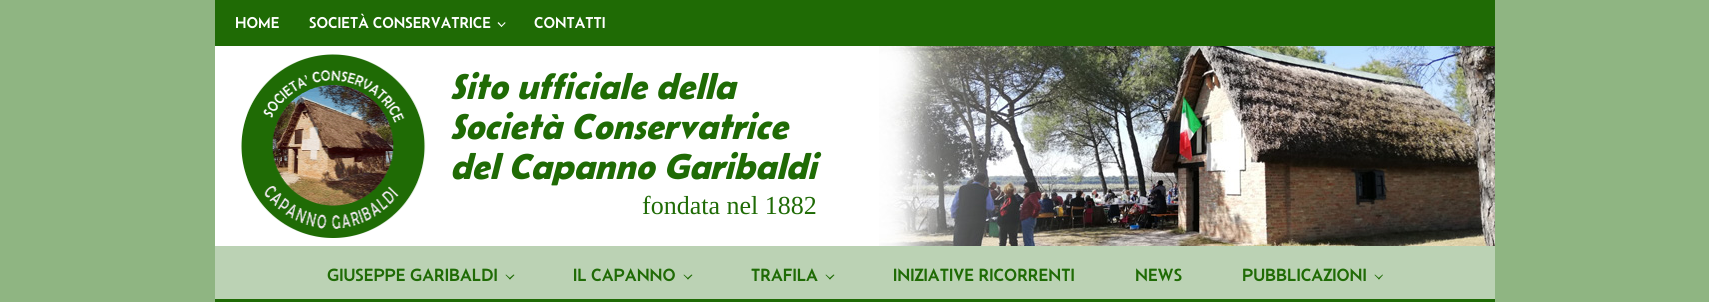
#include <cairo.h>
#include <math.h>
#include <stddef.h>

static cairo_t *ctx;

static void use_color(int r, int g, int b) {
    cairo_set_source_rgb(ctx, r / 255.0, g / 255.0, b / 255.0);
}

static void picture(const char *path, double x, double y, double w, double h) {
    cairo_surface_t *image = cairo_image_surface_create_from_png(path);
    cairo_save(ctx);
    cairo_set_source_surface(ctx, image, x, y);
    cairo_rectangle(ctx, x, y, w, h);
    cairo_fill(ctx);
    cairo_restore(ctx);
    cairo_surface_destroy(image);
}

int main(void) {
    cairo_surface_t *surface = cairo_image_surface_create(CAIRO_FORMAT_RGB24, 1709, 302);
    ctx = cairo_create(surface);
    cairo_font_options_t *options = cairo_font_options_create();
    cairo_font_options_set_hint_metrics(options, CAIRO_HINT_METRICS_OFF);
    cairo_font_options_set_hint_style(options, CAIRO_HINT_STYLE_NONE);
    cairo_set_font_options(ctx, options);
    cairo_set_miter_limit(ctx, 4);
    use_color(143, 181, 130);
    cairo_paint(ctx);
    use_color(31, 107, 5);
    cairo_rectangle(ctx, 215, 0, 1280, 46);
    cairo_fill(ctx);
    cairo_select_font_face(ctx, "Belanosima", CAIRO_FONT_SLANT_NORMAL, CAIRO_FONT_WEIGHT_NORMAL);
    cairo_set_font_size(ctx, 16);
    use_color(255, 255, 255);
    cairo_move_to(ctx, 235, 28);
    cairo_show_text(ctx, "HOME");
    cairo_move_to(ctx, 309, 28);
    cairo_show_text(ctx, "SOCIETÀ CONSERVATRICE");
    cairo_new_path(ctx);
    cairo_move_to(ctx, 505.5, 23);
    cairo_line_to(ctx, 501.5, 27);
    cairo_line_to(ctx, 501, 26);
    cairo_line_to(ctx, 505, 22);
    cairo_close_path(ctx);
    cairo_fill(ctx);
    cairo_new_path(ctx);
    cairo_move_to(ctx, 502, 26);
    cairo_line_to(ctx, 501.5, 27);
    cairo_line_to(ctx, 497.5, 23);
    cairo_line_to(ctx, 498.5, 22);
    cairo_close_path(ctx);
    cairo_fill(ctx);
    cairo_move_to(ctx, 534, 28);
    cairo_show_text(ctx, "CONTATTI");
    cairo_rectangle(ctx, 215, 46, 664, 200);
    cairo_fill(ctx);
    picture("img1.png", 879, 46, 616, 200);
    picture("img2.png", 241, 54, 185, 184);
    cairo_select_font_face(ctx, "Belanosima SemiBold", CAIRO_FONT_SLANT_ITALIC, CAIRO_FONT_WEIGHT_NORMAL);
    cairo_set_font_size(ctx, 36);
    use_color(31, 107, 5);
    cairo_move_to(ctx, 450, 99);
    cairo_show_text(ctx, "Sito ufficiale della");
    cairo_move_to(ctx, 450, 139);
    cairo_show_text(ctx, "Società Conservatrice");
    cairo_move_to(ctx, 450, 179);
    cairo_show_text(ctx, "del Capanno Garibaldi");
    cairo_select_font_face(ctx, "Liberation Serif", CAIRO_FONT_SLANT_NORMAL, CAIRO_FONT_WEIGHT_NORMAL);
    cairo_set_font_size(ctx, 26);
    cairo_move_to(ctx, 642, 214);
    cairo_show_text(ctx, "fondata nel 1882");
    use_color(187, 210, 180);
    cairo_rectangle(ctx, 215, 246, 1280, 53);
    cairo_fill(ctx);
    cairo_select_font_face(ctx, "Belanosima", CAIRO_FONT_SLANT_NORMAL, CAIRO_FONT_WEIGHT_NORMAL);
    cairo_set_font_size(ctx, 18);
    use_color(31, 107, 5);
    cairo_move_to(ctx, 327, 281);
    cairo_show_text(ctx, "GIUSEPPE GARIBALDI");
    cairo_new_path(ctx);
    cairo_move_to(ctx, 514.5, 275);
    cairo_line_to(ctx, 510, 279.5);
    cairo_line_to(ctx, 509, 278.5);
    cairo_line_to(ctx, 513.5, 274.5);
    cairo_close_path(ctx);
    cairo_fill(ctx);
    cairo_new_path(ctx);
    cairo_move_to(ctx, 510.5, 278.5);
    cairo_line_to(ctx, 510, 279.5);
    cairo_line_to(ctx, 505.5, 275);
    cairo_line_to(ctx, 506, 274.5);
    cairo_close_path(ctx);
    cairo_fill(ctx);
    cairo_move_to(ctx, 573, 281);
    cairo_show_text(ctx, "IL CAPANNO");
    cairo_new_path(ctx);
    cairo_move_to(ctx, 692.5, 275);
    cairo_line_to(ctx, 688, 279.5);
    cairo_line_to(ctx, 687, 278.5);
    cairo_line_to(ctx, 691.5, 274.5);
    cairo_close_path(ctx);
    cairo_fill(ctx);
    cairo_new_path(ctx);
    cairo_move_to(ctx, 688.5, 278.5);
    cairo_line_to(ctx, 688, 279.5);
    cairo_line_to(ctx, 683.5, 275);
    cairo_line_to(ctx, 684, 274.5);
    cairo_close_path(ctx);
    cairo_fill(ctx);
    cairo_move_to(ctx, 751, 281);
    cairo_show_text(ctx, "TRAFILA");
    cairo_new_path(ctx);
    cairo_move_to(ctx, 834.5, 275);
    cairo_line_to(ctx, 830, 279.5);
    cairo_line_to(ctx, 829, 278.5);
    cairo_line_to(ctx, 833.5, 274.5);
    cairo_close_path(ctx);
    cairo_fill(ctx);
    cairo_new_path(ctx);
    cairo_move_to(ctx, 830.5, 278.5);
    cairo_line_to(ctx, 830, 279.5);
    cairo_line_to(ctx, 825.5, 275);
    cairo_line_to(ctx, 826, 274.5);
    cairo_close_path(ctx);
    cairo_fill(ctx);
    cairo_move_to(ctx, 893, 281);
    cairo_show_text(ctx, "INIZIATIVE RICORRENTI");
    cairo_move_to(ctx, 1135, 281);
    cairo_show_text(ctx, "NEWS");
    cairo_move_to(ctx, 1242, 281);
    cairo_show_text(ctx, "PUBBLICAZIONI");
    cairo_new_path(ctx);
    cairo_move_to(ctx, 1383, 275);
    cairo_line_to(ctx, 1379, 279.5);
    cairo_line_to(ctx, 1378, 278.5);
    cairo_line_to(ctx, 1382.5, 274.5);
    cairo_close_path(ctx);
    cairo_fill(ctx);
    cairo_new_path(ctx);
    cairo_move_to(ctx, 1379.5, 278.5);
    cairo_line_to(ctx, 1379, 279.5);
    cairo_line_to(ctx, 1374.5, 275);
    cairo_line_to(ctx, 1375, 274.5);
    cairo_close_path(ctx);
    cairo_fill(ctx);
    cairo_rectangle(ctx, 215, 299, 1280, 3);
    cairo_fill(ctx);
    cairo_surface_write_to_png(surface, "result.png");
    cairo_font_options_destroy(options);
    cairo_destroy(ctx);
    cairo_surface_destroy(surface);
    return 0;
}
